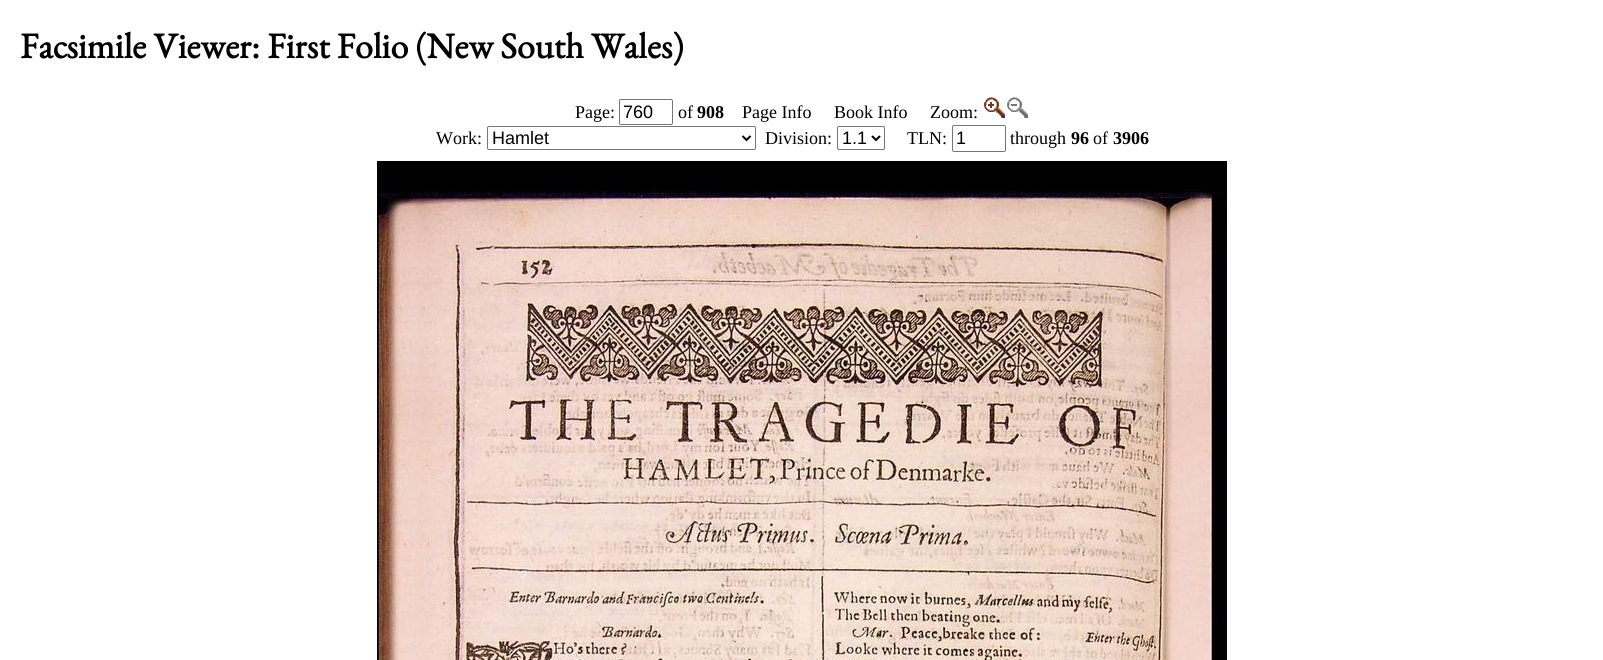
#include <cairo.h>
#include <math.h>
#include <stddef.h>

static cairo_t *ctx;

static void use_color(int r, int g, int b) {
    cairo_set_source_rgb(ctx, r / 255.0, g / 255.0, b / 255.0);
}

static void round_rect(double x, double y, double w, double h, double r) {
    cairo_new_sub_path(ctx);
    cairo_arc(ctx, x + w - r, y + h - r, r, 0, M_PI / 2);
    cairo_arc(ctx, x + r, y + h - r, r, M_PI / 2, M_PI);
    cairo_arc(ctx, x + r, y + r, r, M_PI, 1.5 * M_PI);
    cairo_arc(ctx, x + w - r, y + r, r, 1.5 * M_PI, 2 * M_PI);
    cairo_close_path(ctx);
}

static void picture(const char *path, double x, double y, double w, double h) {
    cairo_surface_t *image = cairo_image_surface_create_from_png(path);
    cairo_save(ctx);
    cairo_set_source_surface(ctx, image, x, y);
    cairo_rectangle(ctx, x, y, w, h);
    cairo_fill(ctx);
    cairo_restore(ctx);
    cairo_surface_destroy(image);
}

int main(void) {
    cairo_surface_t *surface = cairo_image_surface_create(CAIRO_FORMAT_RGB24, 1603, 660);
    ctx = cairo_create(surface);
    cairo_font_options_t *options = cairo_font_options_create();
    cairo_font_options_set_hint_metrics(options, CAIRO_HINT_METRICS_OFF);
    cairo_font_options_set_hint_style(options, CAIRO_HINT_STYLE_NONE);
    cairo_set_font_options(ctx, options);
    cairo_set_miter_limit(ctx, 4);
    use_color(255, 255, 255);
    cairo_paint(ctx);
    cairo_select_font_face(ctx, "EB Garamond", CAIRO_FONT_SLANT_NORMAL, CAIRO_FONT_WEIGHT_BOLD);
    cairo_set_font_size(ctx, 36);
    use_color(0, 0, 0);
    cairo_move_to(ctx, 20, 58);
    cairo_show_text(ctx, "Facsimile Viewer: First Folio (New South Wales)");
    cairo_select_font_face(ctx, "Liberation Serif", CAIRO_FONT_SLANT_NORMAL, CAIRO_FONT_WEIGHT_NORMAL);
    cairo_set_font_size(ctx, 18);
    cairo_move_to(ctx, 575, 118);
    cairo_show_text(ctx, "Page:");
    round_rect(619.5, 99.5, 53, 25, 1.5);
    use_color(118, 118, 118);
    cairo_set_line_width(ctx, 1);
    cairo_stroke(ctx);
    cairo_select_font_face(ctx, "Liberation Sans", CAIRO_FONT_SLANT_NORMAL, CAIRO_FONT_WEIGHT_NORMAL);
    use_color(0, 0, 0);
    cairo_move_to(ctx, 623, 118);
    cairo_show_text(ctx, "760");
    cairo_select_font_face(ctx, "Liberation Serif", CAIRO_FONT_SLANT_NORMAL, CAIRO_FONT_WEIGHT_NORMAL);
    cairo_move_to(ctx, 678, 118);
    cairo_show_text(ctx, "of");
    cairo_select_font_face(ctx, "Liberation Serif", CAIRO_FONT_SLANT_NORMAL, CAIRO_FONT_WEIGHT_BOLD);
    cairo_move_to(ctx, 697, 118);
    cairo_show_text(ctx, "908");
    cairo_select_font_face(ctx, "Liberation Serif", CAIRO_FONT_SLANT_NORMAL, CAIRO_FONT_WEIGHT_NORMAL);
    cairo_move_to(ctx, 742, 118);
    cairo_show_text(ctx, "Page Info");
    cairo_move_to(ctx, 834, 118);
    cairo_show_text(ctx, "Book Info");
    cairo_move_to(ctx, 930, 118);
    cairo_show_text(ctx, "Zoom:");
    picture("img1.png", 984, 97, 21, 21);
    picture("img2.png", 1007, 97, 21, 21);
    cairo_move_to(ctx, 436, 144);
    cairo_show_text(ctx, "Work:");
    round_rect(487.5, 126.5, 268, 23, 1.5);
    use_color(118, 118, 118);
    cairo_stroke(ctx);
    cairo_new_path(ctx);
    cairo_move_to(ctx, 742.5, 136);
    cairo_line_to(ctx, 746.5, 140);
    cairo_line_to(ctx, 750.5, 136);
    use_color(0, 0, 0);
    cairo_set_line_width(ctx, 2);
    cairo_stroke(ctx);
    cairo_select_font_face(ctx, "Liberation Sans", CAIRO_FONT_SLANT_NORMAL, CAIRO_FONT_WEIGHT_NORMAL);
    cairo_move_to(ctx, 492, 144);
    cairo_show_text(ctx, "Hamlet");
    cairo_select_font_face(ctx, "Liberation Serif", CAIRO_FONT_SLANT_NORMAL, CAIRO_FONT_WEIGHT_NORMAL);
    cairo_move_to(ctx, 765, 144);
    cairo_show_text(ctx, "Division:");
    round_rect(837.5, 126.5, 47, 23, 1.5);
    use_color(118, 118, 118);
    cairo_set_line_width(ctx, 1);
    cairo_stroke(ctx);
    cairo_new_path(ctx);
    cairo_move_to(ctx, 872, 136);
    cairo_line_to(ctx, 876, 140);
    cairo_line_to(ctx, 880, 136);
    use_color(0, 0, 0);
    cairo_set_line_width(ctx, 2);
    cairo_stroke(ctx);
    cairo_select_font_face(ctx, "Liberation Sans", CAIRO_FONT_SLANT_NORMAL, CAIRO_FONT_WEIGHT_NORMAL);
    cairo_move_to(ctx, 842, 144);
    cairo_show_text(ctx, "1.1");
    cairo_select_font_face(ctx, "Liberation Serif", CAIRO_FONT_SLANT_NORMAL, CAIRO_FONT_WEIGHT_NORMAL);
    cairo_move_to(ctx, 907, 144);
    cairo_show_text(ctx, "TLN:");
    round_rect(952.5, 125.5, 53, 26, 1.5);
    use_color(118, 118, 118);
    cairo_set_line_width(ctx, 1);
    cairo_stroke(ctx);
    cairo_select_font_face(ctx, "Liberation Sans", CAIRO_FONT_SLANT_NORMAL, CAIRO_FONT_WEIGHT_NORMAL);
    use_color(0, 0, 0);
    cairo_move_to(ctx, 956, 144);
    cairo_show_text(ctx, "1");
    cairo_select_font_face(ctx, "Liberation Serif", CAIRO_FONT_SLANT_NORMAL, CAIRO_FONT_WEIGHT_NORMAL);
    cairo_move_to(ctx, 1010, 144);
    cairo_show_text(ctx, "through");
    cairo_select_font_face(ctx, "Liberation Serif", CAIRO_FONT_SLANT_NORMAL, CAIRO_FONT_WEIGHT_BOLD);
    cairo_move_to(ctx, 1071, 144);
    cairo_show_text(ctx, "96");
    cairo_select_font_face(ctx, "Liberation Serif", CAIRO_FONT_SLANT_NORMAL, CAIRO_FONT_WEIGHT_NORMAL);
    cairo_move_to(ctx, 1093, 144);
    cairo_show_text(ctx, "of");
    cairo_select_font_face(ctx, "Liberation Serif", CAIRO_FONT_SLANT_NORMAL, CAIRO_FONT_WEIGHT_BOLD);
    cairo_move_to(ctx, 1113, 144);
    cairo_show_text(ctx, "3906");
    picture("img3.png", 377, 161, 850, 499);
    cairo_surface_write_to_png(surface, "result.png");
    cairo_font_options_destroy(options);
    cairo_destroy(ctx);
    cairo_surface_destroy(surface);
    return 0;
}
